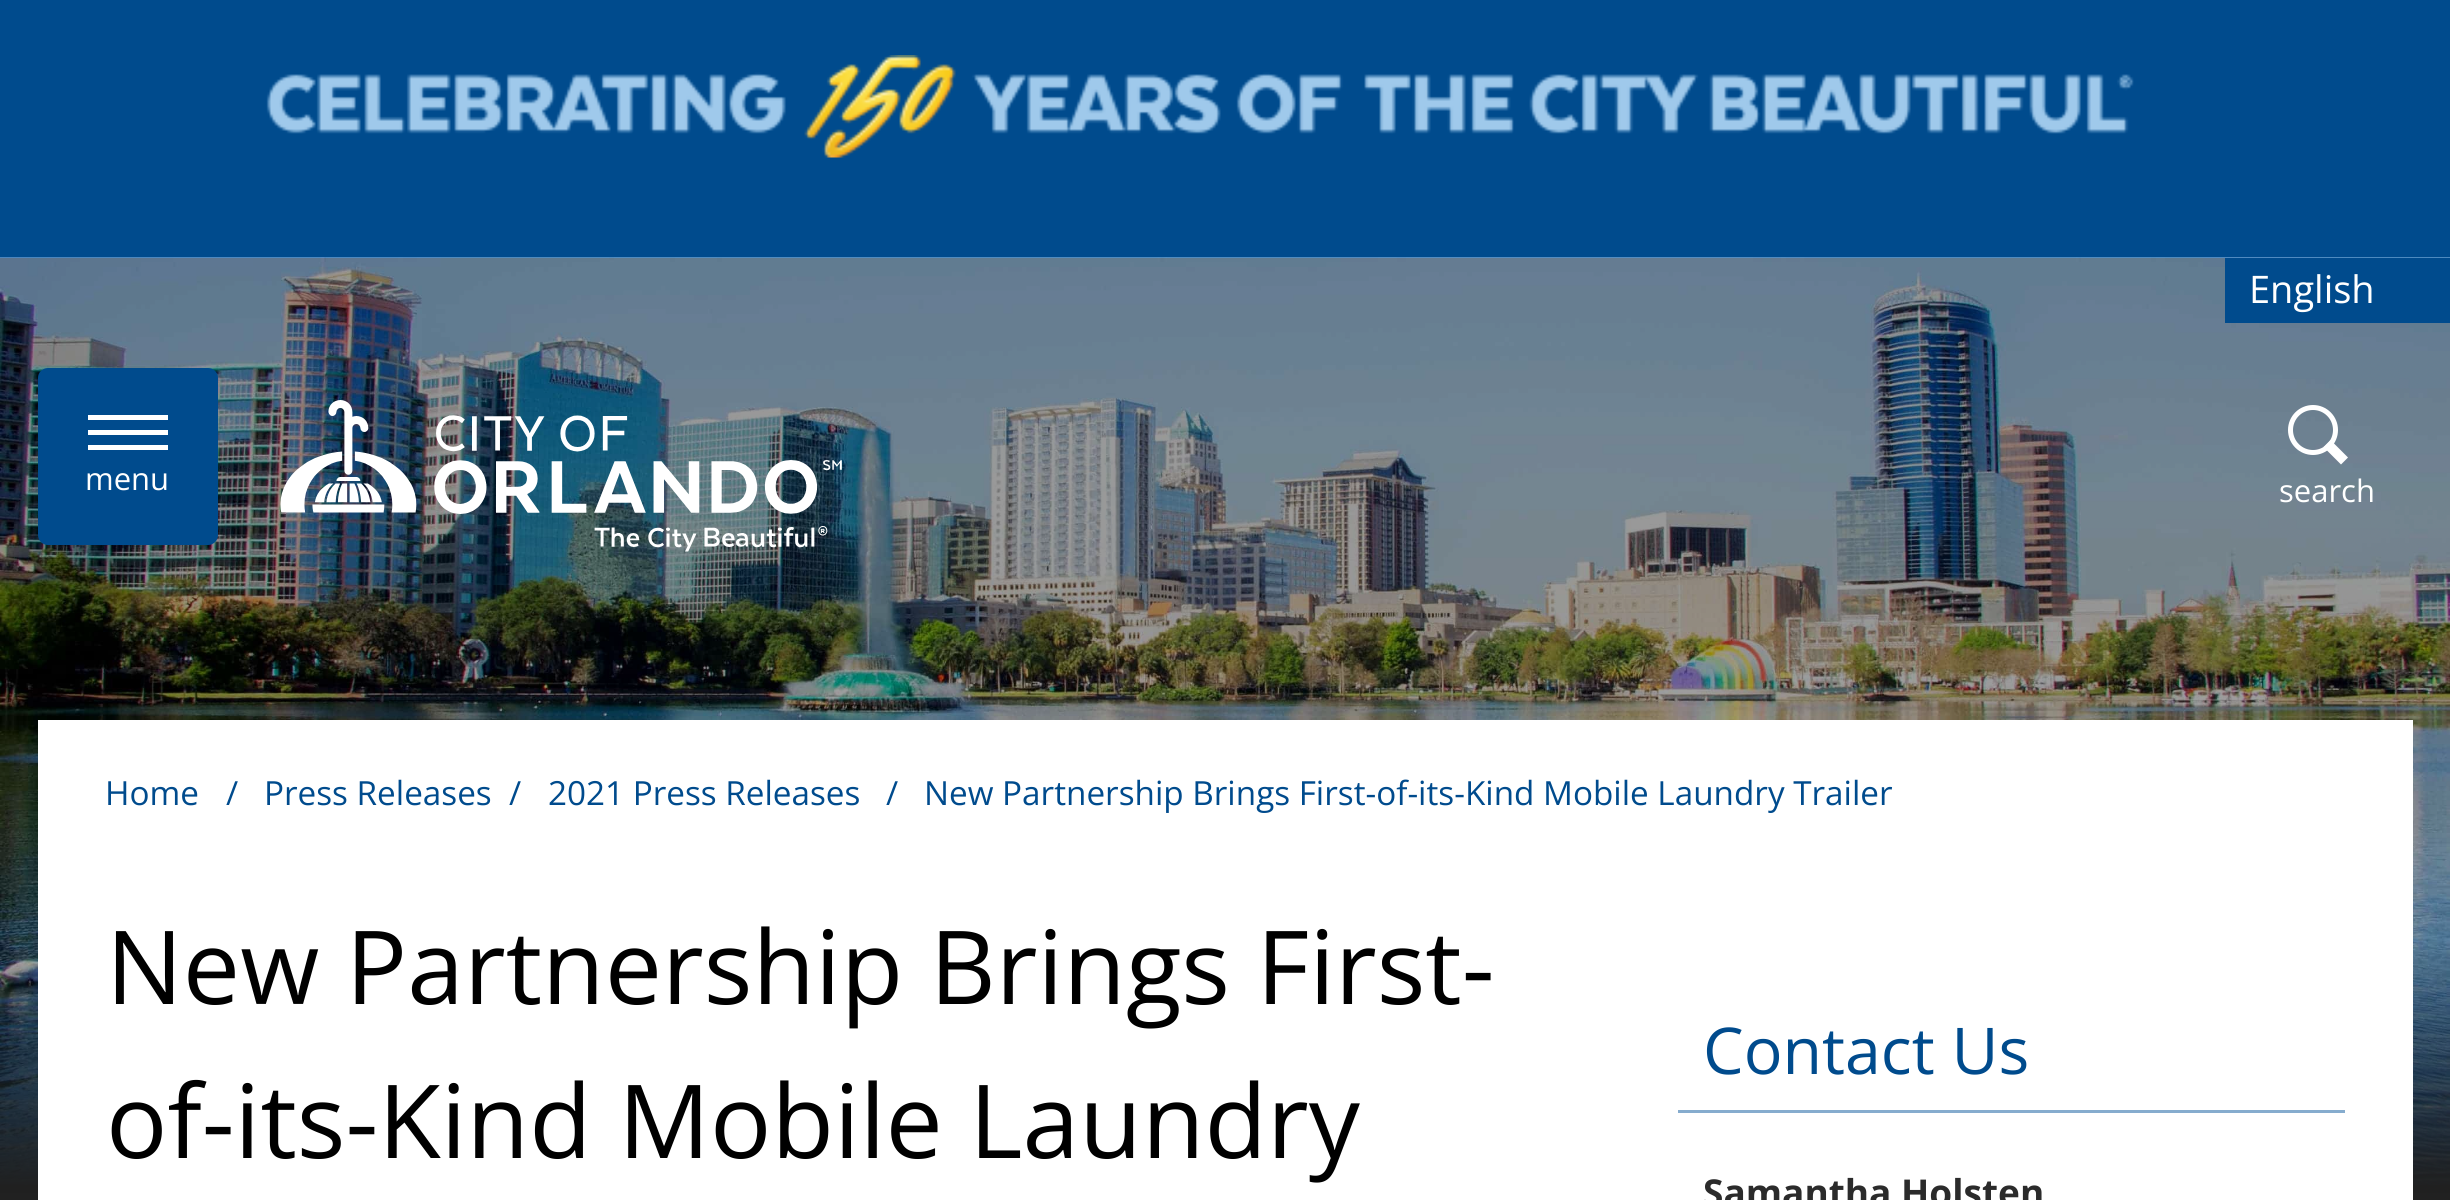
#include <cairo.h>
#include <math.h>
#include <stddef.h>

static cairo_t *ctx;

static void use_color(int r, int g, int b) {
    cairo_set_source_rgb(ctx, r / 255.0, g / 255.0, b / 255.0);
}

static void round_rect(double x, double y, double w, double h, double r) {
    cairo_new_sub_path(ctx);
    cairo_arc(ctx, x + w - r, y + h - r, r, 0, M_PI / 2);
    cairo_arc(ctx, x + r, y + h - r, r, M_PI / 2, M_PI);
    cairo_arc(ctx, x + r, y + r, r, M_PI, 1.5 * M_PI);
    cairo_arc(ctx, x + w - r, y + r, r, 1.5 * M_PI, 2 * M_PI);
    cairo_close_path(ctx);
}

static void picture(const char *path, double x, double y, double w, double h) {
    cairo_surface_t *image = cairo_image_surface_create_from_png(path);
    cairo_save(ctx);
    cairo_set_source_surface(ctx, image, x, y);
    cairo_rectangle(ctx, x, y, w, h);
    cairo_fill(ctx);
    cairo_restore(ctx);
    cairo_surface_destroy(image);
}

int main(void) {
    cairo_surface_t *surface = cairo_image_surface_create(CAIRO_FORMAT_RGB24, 2450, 1200);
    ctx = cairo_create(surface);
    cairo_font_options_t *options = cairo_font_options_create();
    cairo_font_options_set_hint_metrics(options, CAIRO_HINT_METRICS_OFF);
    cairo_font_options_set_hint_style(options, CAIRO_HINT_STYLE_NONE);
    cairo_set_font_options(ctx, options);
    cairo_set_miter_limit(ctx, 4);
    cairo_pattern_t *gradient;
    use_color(0, 75, 141);
    cairo_paint(ctx);
    picture("img1.png", 266, 55, 1868, 103);
    use_color(43, 43, 43);
    cairo_rectangle(ctx, 0, 1185, 2450, 15);
    cairo_fill(ctx);
    picture("img2.png", 0, 257, 2450, 928);
    cairo_set_source_rgba(ctx, 0, 0, 0, 0.4);
    cairo_rectangle(ctx, 0, 258, 2450, 72);
    cairo_fill(ctx);
    use_color(0, 75, 141);
    cairo_rectangle(ctx, 2225, 258, 225, 65);
    cairo_fill(ctx);
    cairo_select_font_face(ctx, "Open Sans", CAIRO_FONT_SLANT_NORMAL, CAIRO_FONT_WEIGHT_NORMAL);
    cairo_set_font_size(ctx, 38);
    use_color(255, 255, 255);
    cairo_move_to(ctx, 2249, 303);
    cairo_show_text(ctx, "English");
    cairo_set_source_rgba(ctx, 0, 0, 0, 0.4);
    cairo_rectangle(ctx, 0, 330, 2450, 290);
    cairo_fill(ctx);
    use_color(0, 75, 141);
    round_rect(38, 368, 180, 177, 10);
    cairo_fill(ctx);
    use_color(255, 255, 255);
    cairo_rectangle(ctx, 88, 430, 80, 5);
    cairo_fill(ctx);
    cairo_rectangle(ctx, 88, 415, 80, 5);
    cairo_fill(ctx);
    cairo_rectangle(ctx, 88, 445, 80, 5);
    cairo_fill(ctx);
    cairo_set_font_size(ctx, 31);
    cairo_move_to(ctx, 85, 490);
    cairo_show_text(ctx, "menu");
    picture("img3.png", 280, 400, 562, 152);
    cairo_arc(ctx, 2313, 430, 22.5, 0, 2 * M_PI);
    cairo_set_line_width(ctx, 5);
    cairo_stroke(ctx);
    cairo_new_path(ctx);
    cairo_move_to(ctx, 2330.5, 440);
    cairo_line_to(ctx, 2348, 457.5);
    cairo_line_to(ctx, 2341, 464.5);
    cairo_line_to(ctx, 2323.5, 447);
    cairo_close_path(ctx);
    cairo_fill(ctx);
    cairo_move_to(ctx, 2279, 502);
    cairo_show_text(ctx, "search");
    gradient = cairo_pattern_create_linear(1225, 1188, 1225, 258);
    cairo_pattern_add_color_stop_rgba(gradient, 0, 0.169, 0.169, 0.169, 1);
    cairo_pattern_add_color_stop_rgba(gradient, 0.27, 0.169, 0.169, 0.169, 0);
    cairo_set_source(ctx, gradient);
    cairo_pattern_destroy(gradient);
    cairo_rectangle(ctx, 0, 942, 2450, 243);
    cairo_fill(ctx);
    gradient = cairo_pattern_create_linear(1225, 620, 1225, 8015);
    cairo_pattern_add_color_stop_rgba(gradient, 0, 0, 0, 0, 0.4);
    cairo_pattern_add_color_stop_rgba(gradient, 0.2, 0, 0, 0, 0);
    cairo_set_source(ctx, gradient);
    cairo_pattern_destroy(gradient);
    cairo_rectangle(ctx, 0, 620, 2450, 580);
    cairo_fill(ctx);
    use_color(255, 255, 255);
    cairo_rectangle(ctx, 38, 720, 2375, 480);
    cairo_fill(ctx);
    cairo_set_font_size(ctx, 33.25);
    use_color(0, 75, 141);
    cairo_move_to(ctx, 105, 805);
    cairo_show_text(ctx, "Home");
    cairo_move_to(ctx, 226, 805);
    cairo_show_text(ctx, "/");
    cairo_move_to(ctx, 264, 805);
    cairo_show_text(ctx, "Press Releases");
    cairo_move_to(ctx, 509, 805);
    cairo_show_text(ctx, "/");
    cairo_move_to(ctx, 548, 805);
    cairo_show_text(ctx, "2021 Press Releases");
    cairo_move_to(ctx, 886, 805);
    cairo_show_text(ctx, "/");
    cairo_move_to(ctx, 924, 805);
    cairo_show_text(ctx, "New Partnership Brings First-of-its-Kind Mobile Laundry Trailer");
    cairo_set_font_size(ctx, 102.1);
    use_color(0, 0, 0);
    cairo_move_to(ctx, 106, 1004);
    cairo_show_text(ctx, "New Partnership Brings First-");
    cairo_move_to(ctx, 106, 1158);
    cairo_show_text(ctx, "of-its-Kind Mobile Laundry");
    use_color(134, 172, 206);
    cairo_rectangle(ctx, 1678, 1110, 667, 3);
    cairo_fill(ctx);
    cairo_set_font_size(ctx, 64.5);
    use_color(0, 75, 141);
    cairo_move_to(ctx, 1703, 1074);
    cairo_show_text(ctx, "Contact Us");
    cairo_select_font_face(ctx, "Open Sans", CAIRO_FONT_SLANT_NORMAL, CAIRO_FONT_WEIGHT_BOLD);
    cairo_set_font_size(ctx, 37);
    use_color(43, 43, 43);
    cairo_move_to(ctx, 1703, 1206);
    cairo_show_text(ctx, "Samantha Holsten");
    cairo_surface_write_to_png(surface, "result.png");
    cairo_font_options_destroy(options);
    cairo_destroy(ctx);
    cairo_surface_destroy(surface);
    return 0;
}
